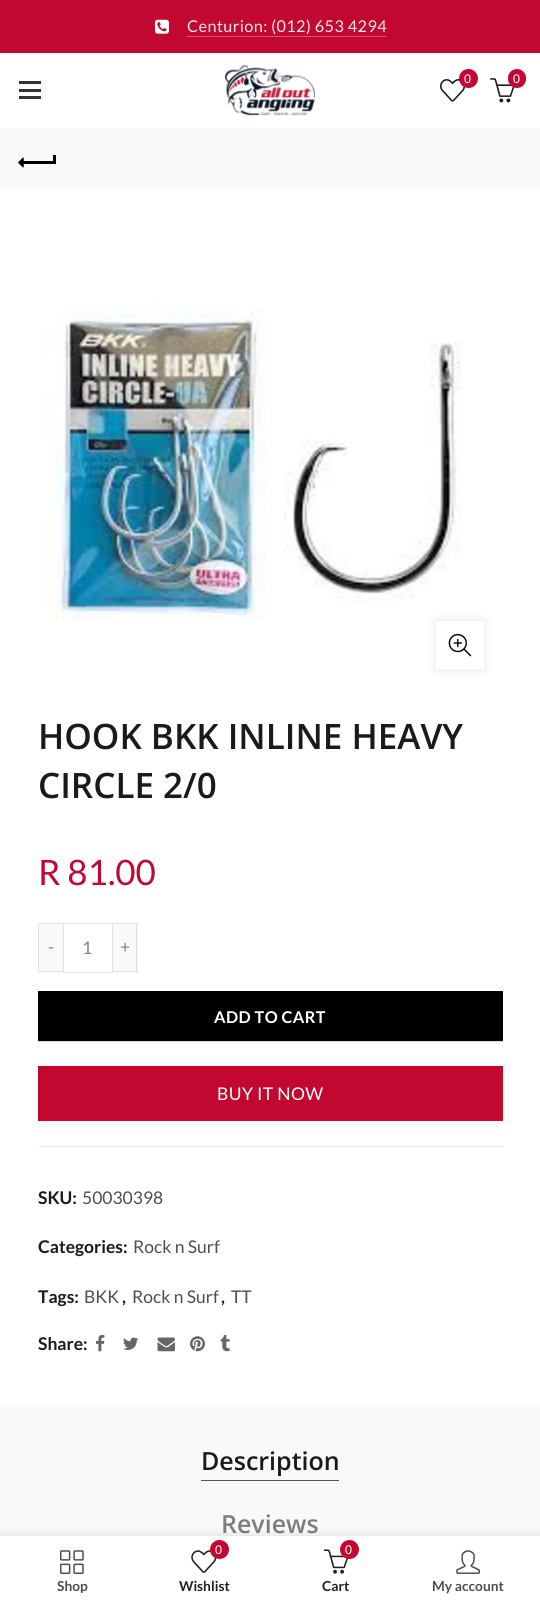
#include <cairo.h>
#include <math.h>
#include <stddef.h>

static cairo_t *ctx;

static void use_color(int r, int g, int b) {
    cairo_set_source_rgb(ctx, r / 255.0, g / 255.0, b / 255.0);
}

static void spaced_text(double x, double y, const char *s, double letter, double word) {
    cairo_move_to(ctx, x, y);
    while (*s) {
        char ch[5] = {0};
        int n = 0;
        do ch[n++] = *s++; while ((*s & 0xC0) == 0x80);
        cairo_show_text(ctx, ch);
        cairo_rel_move_to(ctx, letter + word * (*ch == ' '), 0);
    }
}

static void round_rect(double x, double y, double w, double h, double r) {
    cairo_new_sub_path(ctx);
    cairo_arc(ctx, x + w - r, y + h - r, r, 0, M_PI / 2);
    cairo_arc(ctx, x + r, y + h - r, r, M_PI / 2, M_PI);
    cairo_arc(ctx, x + r, y + r, r, M_PI, 1.5 * M_PI);
    cairo_arc(ctx, x + w - r, y + r, r, 1.5 * M_PI, 2 * M_PI);
    cairo_close_path(ctx);
}

static void shadow(double x, double y, double w, double h, double r, double blur, double alpha) {
    cairo_push_group_with_content(ctx, CAIRO_CONTENT_ALPHA);
    cairo_set_operator(ctx, CAIRO_OPERATOR_SOURCE);
    for (int i = 15; i >= -15 && fmin(w, h) + blur * i / 3 > 0; i -= 2) {
        double e = blur * i / 6;
        cairo_set_source_rgba(ctx, 0, 0, 0, alpha * erfc((i - 1) / 8.5) / 2);
        round_rect(x - e, y - e, w + 2 * e, h + 2 * e, fmax(0, fmin(r + e + blur * .6, fmin(w, h) / 2 + e)));
        cairo_fill(ctx);
    }
    cairo_pattern_t *soft = cairo_pop_group(ctx);
    cairo_mask(ctx, soft);
    cairo_pattern_destroy(soft);
}

static void picture(const char *path, double x, double y, double w, double h) {
    cairo_surface_t *image = cairo_image_surface_create_from_png(path);
    cairo_save(ctx);
    cairo_set_source_surface(ctx, image, x, y);
    cairo_rectangle(ctx, x, y, w, h);
    cairo_fill(ctx);
    cairo_restore(ctx);
    cairo_surface_destroy(image);
}

int main(void) {
    cairo_surface_t *surface = cairo_image_surface_create(CAIRO_FORMAT_RGB24, 540, 1604);
    ctx = cairo_create(surface);
    cairo_font_options_t *options = cairo_font_options_create();
    cairo_font_options_set_hint_metrics(options, CAIRO_HINT_METRICS_OFF);
    cairo_font_options_set_hint_style(options, CAIRO_HINT_STYLE_NONE);
    cairo_set_font_options(ctx, options);
    cairo_set_miter_limit(ctx, 4);
    use_color(255, 255, 255);
    cairo_paint(ctx);
    use_color(194, 8, 49);
    cairo_rectangle(ctx, 0, 0, 540, 53);
    cairo_fill(ctx);
    picture("img1.png", 155, 19, 14, 15);
    cairo_select_font_face(ctx, "Lato", CAIRO_FONT_SLANT_NORMAL, CAIRO_FONT_WEIGHT_NORMAL);
    cairo_set_font_size(ctx, 16.25);
    use_color(249, 230, 234);
    spaced_text(187, 32, "Centurion: (012) 653 4294", 0.4, 0);
    use_color(212, 82, 111);
    cairo_rectangle(ctx, 186, 36, 200, 1);
    cairo_fill(ctx);
    picture("img2.png", 225, 64, 90, 52);
    picture("img3.png", 440, 79, 25, 23);
    use_color(194, 8, 49);
    cairo_arc(ctx, 468.5, 78.5, 9.5, 0, 2 * M_PI);
    cairo_fill(ctx);
    cairo_set_font_size(ctx, 12);
    use_color(255, 255, 255);
    cairo_move_to(ctx, 464, 83);
    cairo_show_text(ctx, "0");
    picture("img4.png", 490, 78, 25, 25);
    use_color(194, 8, 49);
    round_rect(508, 69, 18, 19, 9);
    cairo_fill(ctx);
    use_color(255, 255, 255);
    cairo_move_to(ctx, 513, 83);
    cairo_show_text(ctx, "0");
    use_color(51, 51, 51);
    cairo_rectangle(ctx, 19, 89, 22, 3);
    cairo_fill(ctx);
    cairo_rectangle(ctx, 19, 81, 22, 3);
    cairo_fill(ctx);
    cairo_rectangle(ctx, 19, 96, 22, 3);
    cairo_fill(ctx);
    use_color(217, 217, 217);
    cairo_rectangle(ctx, 38, 1041, 465, 1);
    cairo_fill(ctx);
    use_color(249, 249, 249);
    cairo_rectangle(ctx, 0, 128, 540, 62);
    cairo_fill(ctx);
    use_color(0, 0, 0);
    cairo_rectangle(ctx, 23, 161, 31, 3);
    cairo_fill(ctx);
    picture("img5.png", 18, 157, 6, 11);
    cairo_rectangle(ctx, 53, 155, 3, 9);
    cairo_fill(ctx);
    picture("img6.png", 43, 302, 419, 318);
    use_color(0, 0, 0);
    shadow(436, 621, 48, 48, 0, 5.5, 0.1);
    use_color(255, 255, 255);
    cairo_rectangle(ctx, 436, 621, 48, 48);
    cairo_fill(ctx);
    picture("img7.png", 448, 633, 24, 24);
    cairo_select_font_face(ctx, "Open Sans SemiBold", CAIRO_FONT_SLANT_NORMAL, CAIRO_FONT_WEIGHT_NORMAL);
    cairo_set_font_size(ctx, 35);
    use_color(27, 25, 25);
    cairo_move_to(ctx, 38, 749);
    cairo_show_text(ctx, "HOOK BKK INLINE HEAVY");
    cairo_move_to(ctx, 38, 798);
    cairo_show_text(ctx, "CIRCLE 2/0");
    cairo_select_font_face(ctx, "Lato", CAIRO_FONT_SLANT_NORMAL, CAIRO_FONT_WEIGHT_NORMAL);
    use_color(194, 8, 49);
    cairo_move_to(ctx, 38, 885);
    cairo_show_text(ctx, "R 81.00");
    use_color(249, 249, 249);
    cairo_rectangle(ctx, 39, 924, 24, 49);
    cairo_fill(ctx);
    use_color(224, 224, 224);
    cairo_rectangle(ctx, 38, 923, 25, 1);
    cairo_fill(ctx);
    cairo_rectangle(ctx, 38, 971, 25, 1);
    cairo_fill(ctx);
    cairo_rectangle(ctx, 38, 923, 1, 50);
    cairo_fill(ctx);
    cairo_set_font_size(ctx, 17.5);
    use_color(132, 132, 132);
    cairo_move_to(ctx, 48, 953);
    cairo_show_text(ctx, "-");
    cairo_rectangle(ctx, 63.5, 923.5, 49, 49);
    use_color(224, 224, 224);
    cairo_set_line_width(ctx, 1);
    cairo_stroke(ctx);
    use_color(132, 132, 132);
    cairo_move_to(ctx, 82, 954);
    cairo_show_text(ctx, "1");
    use_color(249, 249, 249);
    cairo_rectangle(ctx, 113, 924, 25, 49);
    cairo_fill(ctx);
    use_color(224, 224, 224);
    cairo_rectangle(ctx, 113, 923, 25, 1);
    cairo_fill(ctx);
    cairo_rectangle(ctx, 136, 923, 1, 50);
    cairo_fill(ctx);
    cairo_rectangle(ctx, 113, 971, 25, 1);
    cairo_fill(ctx);
    use_color(132, 132, 132);
    cairo_move_to(ctx, 120, 953);
    cairo_show_text(ctx, "+");
    use_color(0, 0, 0);
    cairo_rectangle(ctx, 38, 991, 465, 50);
    cairo_fill(ctx);
    cairo_select_font_face(ctx, "Lato", CAIRO_FONT_SLANT_NORMAL, CAIRO_FONT_WEIGHT_BOLD);
    cairo_set_font_size(ctx, 16.25);
    use_color(255, 255, 255);
    spaced_text(214, 1023, "ADD TO CART", 0.4, 0);
    use_color(194, 8, 49);
    cairo_rectangle(ctx, 38, 1066, 465, 55);
    cairo_fill(ctx);
    cairo_select_font_face(ctx, "Lato", CAIRO_FONT_SLANT_NORMAL, CAIRO_FONT_WEIGHT_NORMAL);
    cairo_set_font_size(ctx, 17.5);
    use_color(255, 255, 255);
    spaced_text(217, 1100, "BUY IT NOW", 0.4, 0);
    use_color(232, 232, 232);
    cairo_rectangle(ctx, 38, 1146, 465, 1);
    cairo_fill(ctx);
    cairo_select_font_face(ctx, "Lato", CAIRO_FONT_SLANT_NORMAL, CAIRO_FONT_WEIGHT_BOLD);
    use_color(27, 25, 25);
    cairo_move_to(ctx, 38, 1204);
    cairo_show_text(ctx, "SKU:");
    cairo_select_font_face(ctx, "Lato", CAIRO_FONT_SLANT_NORMAL, CAIRO_FONT_WEIGHT_NORMAL);
    use_color(78, 78, 78);
    cairo_move_to(ctx, 82, 1204);
    cairo_show_text(ctx, "50030398");
    cairo_select_font_face(ctx, "Lato", CAIRO_FONT_SLANT_NORMAL, CAIRO_FONT_WEIGHT_BOLD);
    use_color(27, 25, 25);
    cairo_move_to(ctx, 38, 1253);
    cairo_show_text(ctx, "Categories:");
    cairo_select_font_face(ctx, "Lato", CAIRO_FONT_SLANT_NORMAL, CAIRO_FONT_WEIGHT_NORMAL);
    use_color(78, 78, 78);
    cairo_move_to(ctx, 133, 1253);
    cairo_show_text(ctx, "Rock n Surf");
    cairo_select_font_face(ctx, "Lato", CAIRO_FONT_SLANT_NORMAL, CAIRO_FONT_WEIGHT_BOLD);
    use_color(27, 25, 25);
    cairo_move_to(ctx, 38, 1303);
    cairo_show_text(ctx, "Tags:");
    cairo_select_font_face(ctx, "Lato", CAIRO_FONT_SLANT_NORMAL, CAIRO_FONT_WEIGHT_NORMAL);
    use_color(78, 78, 78);
    cairo_move_to(ctx, 84, 1303);
    cairo_show_text(ctx, "BKK");
    cairo_select_font_face(ctx, "Lato", CAIRO_FONT_SLANT_NORMAL, CAIRO_FONT_WEIGHT_BOLD);
    use_color(27, 25, 25);
    cairo_move_to(ctx, 122, 1303);
    cairo_show_text(ctx, ",");
    cairo_select_font_face(ctx, "Lato", CAIRO_FONT_SLANT_NORMAL, CAIRO_FONT_WEIGHT_NORMAL);
    use_color(78, 78, 78);
    cairo_move_to(ctx, 132, 1303);
    cairo_show_text(ctx, "Rock n Surf");
    cairo_select_font_face(ctx, "Lato", CAIRO_FONT_SLANT_NORMAL, CAIRO_FONT_WEIGHT_BOLD);
    use_color(27, 25, 25);
    cairo_move_to(ctx, 221, 1303);
    cairo_show_text(ctx, ",");
    cairo_select_font_face(ctx, "Lato", CAIRO_FONT_SLANT_NORMAL, CAIRO_FONT_WEIGHT_NORMAL);
    use_color(78, 78, 78);
    cairo_move_to(ctx, 231, 1303);
    cairo_show_text(ctx, "TT");
    cairo_select_font_face(ctx, "Lato", CAIRO_FONT_SLANT_NORMAL, CAIRO_FONT_WEIGHT_BOLD);
    use_color(27, 25, 25);
    cairo_move_to(ctx, 38, 1350);
    cairo_show_text(ctx, "Share:");
    picture("img8.png", 95, 1335, 10, 17);
    picture("img9.png", 123, 1337, 16, 13);
    picture("img10.png", 157, 1337, 18, 15);
    picture("img11.png", 190, 1336, 15, 16);
    picture("img12.png", 220, 1335, 10, 17);
    use_color(249, 249, 249);
    cairo_rectangle(ctx, 0, 1405, 540, 131);
    cairo_fill(ctx);
    use_color(84, 84, 84);
    cairo_rectangle(ctx, 201, 1480, 138, 1);
    cairo_fill(ctx);
    cairo_select_font_face(ctx, "Open Sans SemiBold", CAIRO_FONT_SLANT_NORMAL, CAIRO_FONT_WEIGHT_NORMAL);
    cairo_set_font_size(ctx, 25);
    use_color(27, 25, 25);
    cairo_move_to(ctx, 201, 1470);
    cairo_show_text(ctx, "Description");
    use_color(125, 125, 125);
    cairo_move_to(ctx, 221, 1533);
    cairo_show_text(ctx, "Reviews");
    use_color(0, 0, 0);
    shadow(0, 1536, 540, 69, 0, 5.5, 0.12);
    use_color(255, 255, 255);
    cairo_rectangle(ctx, 0, 1536, 540, 68);
    cairo_fill(ctx);
    picture("img13.png", 60, 1550, 24, 24);
    cairo_save(ctx);
    cairo_rectangle(ctx, 19, 1579, 107, 14);
    cairo_clip(ctx);
    cairo_select_font_face(ctx, "Lato", CAIRO_FONT_SLANT_NORMAL, CAIRO_FONT_WEIGHT_BOLD);
    cairo_set_font_size(ctx, 13.75);
    use_color(78, 78, 78);
    cairo_move_to(ctx, 57, 1591);
    cairo_show_text(ctx, "Shop");
    cairo_restore(ctx);
    picture("img14.png", 191, 1550, 26, 23);
    use_color(194, 8, 49);
    cairo_arc(ctx, 219.5, 1549.5, 9.5, 0, 2 * M_PI);
    cairo_fill(ctx);
    cairo_select_font_face(ctx, "Lato", CAIRO_FONT_SLANT_NORMAL, CAIRO_FONT_WEIGHT_NORMAL);
    cairo_set_font_size(ctx, 12);
    use_color(255, 255, 255);
    cairo_move_to(ctx, 215, 1554);
    cairo_show_text(ctx, "0");
    cairo_select_font_face(ctx, "Lato", CAIRO_FONT_SLANT_NORMAL, CAIRO_FONT_WEIGHT_BOLD);
    cairo_set_font_size(ctx, 13.75);
    use_color(32, 32, 32);
    cairo_move_to(ctx, 179, 1591);
    cairo_show_text(ctx, "Wishlist");
    picture("img15.png", 323, 1549, 26, 25);
    use_color(194, 8, 49);
    cairo_arc(ctx, 349.5, 1549.5, 9.5, 0, 2 * M_PI);
    cairo_fill(ctx);
    cairo_select_font_face(ctx, "Lato", CAIRO_FONT_SLANT_NORMAL, CAIRO_FONT_WEIGHT_NORMAL);
    cairo_set_font_size(ctx, 12);
    use_color(255, 255, 255);
    cairo_move_to(ctx, 345, 1554);
    cairo_show_text(ctx, "0");
    cairo_select_font_face(ctx, "Lato", CAIRO_FONT_SLANT_NORMAL, CAIRO_FONT_WEIGHT_BOLD);
    cairo_set_font_size(ctx, 13.75);
    use_color(32, 32, 32);
    cairo_move_to(ctx, 322, 1591);
    cairo_show_text(ctx, "Cart");
    picture("img16.png", 456, 1550, 24, 24);
    use_color(78, 78, 78);
    cairo_move_to(ctx, 432, 1591);
    cairo_show_text(ctx, "My account");
    cairo_surface_write_to_png(surface, "result.png");
    cairo_font_options_destroy(options);
    cairo_destroy(ctx);
    cairo_surface_destroy(surface);
    return 0;
}
